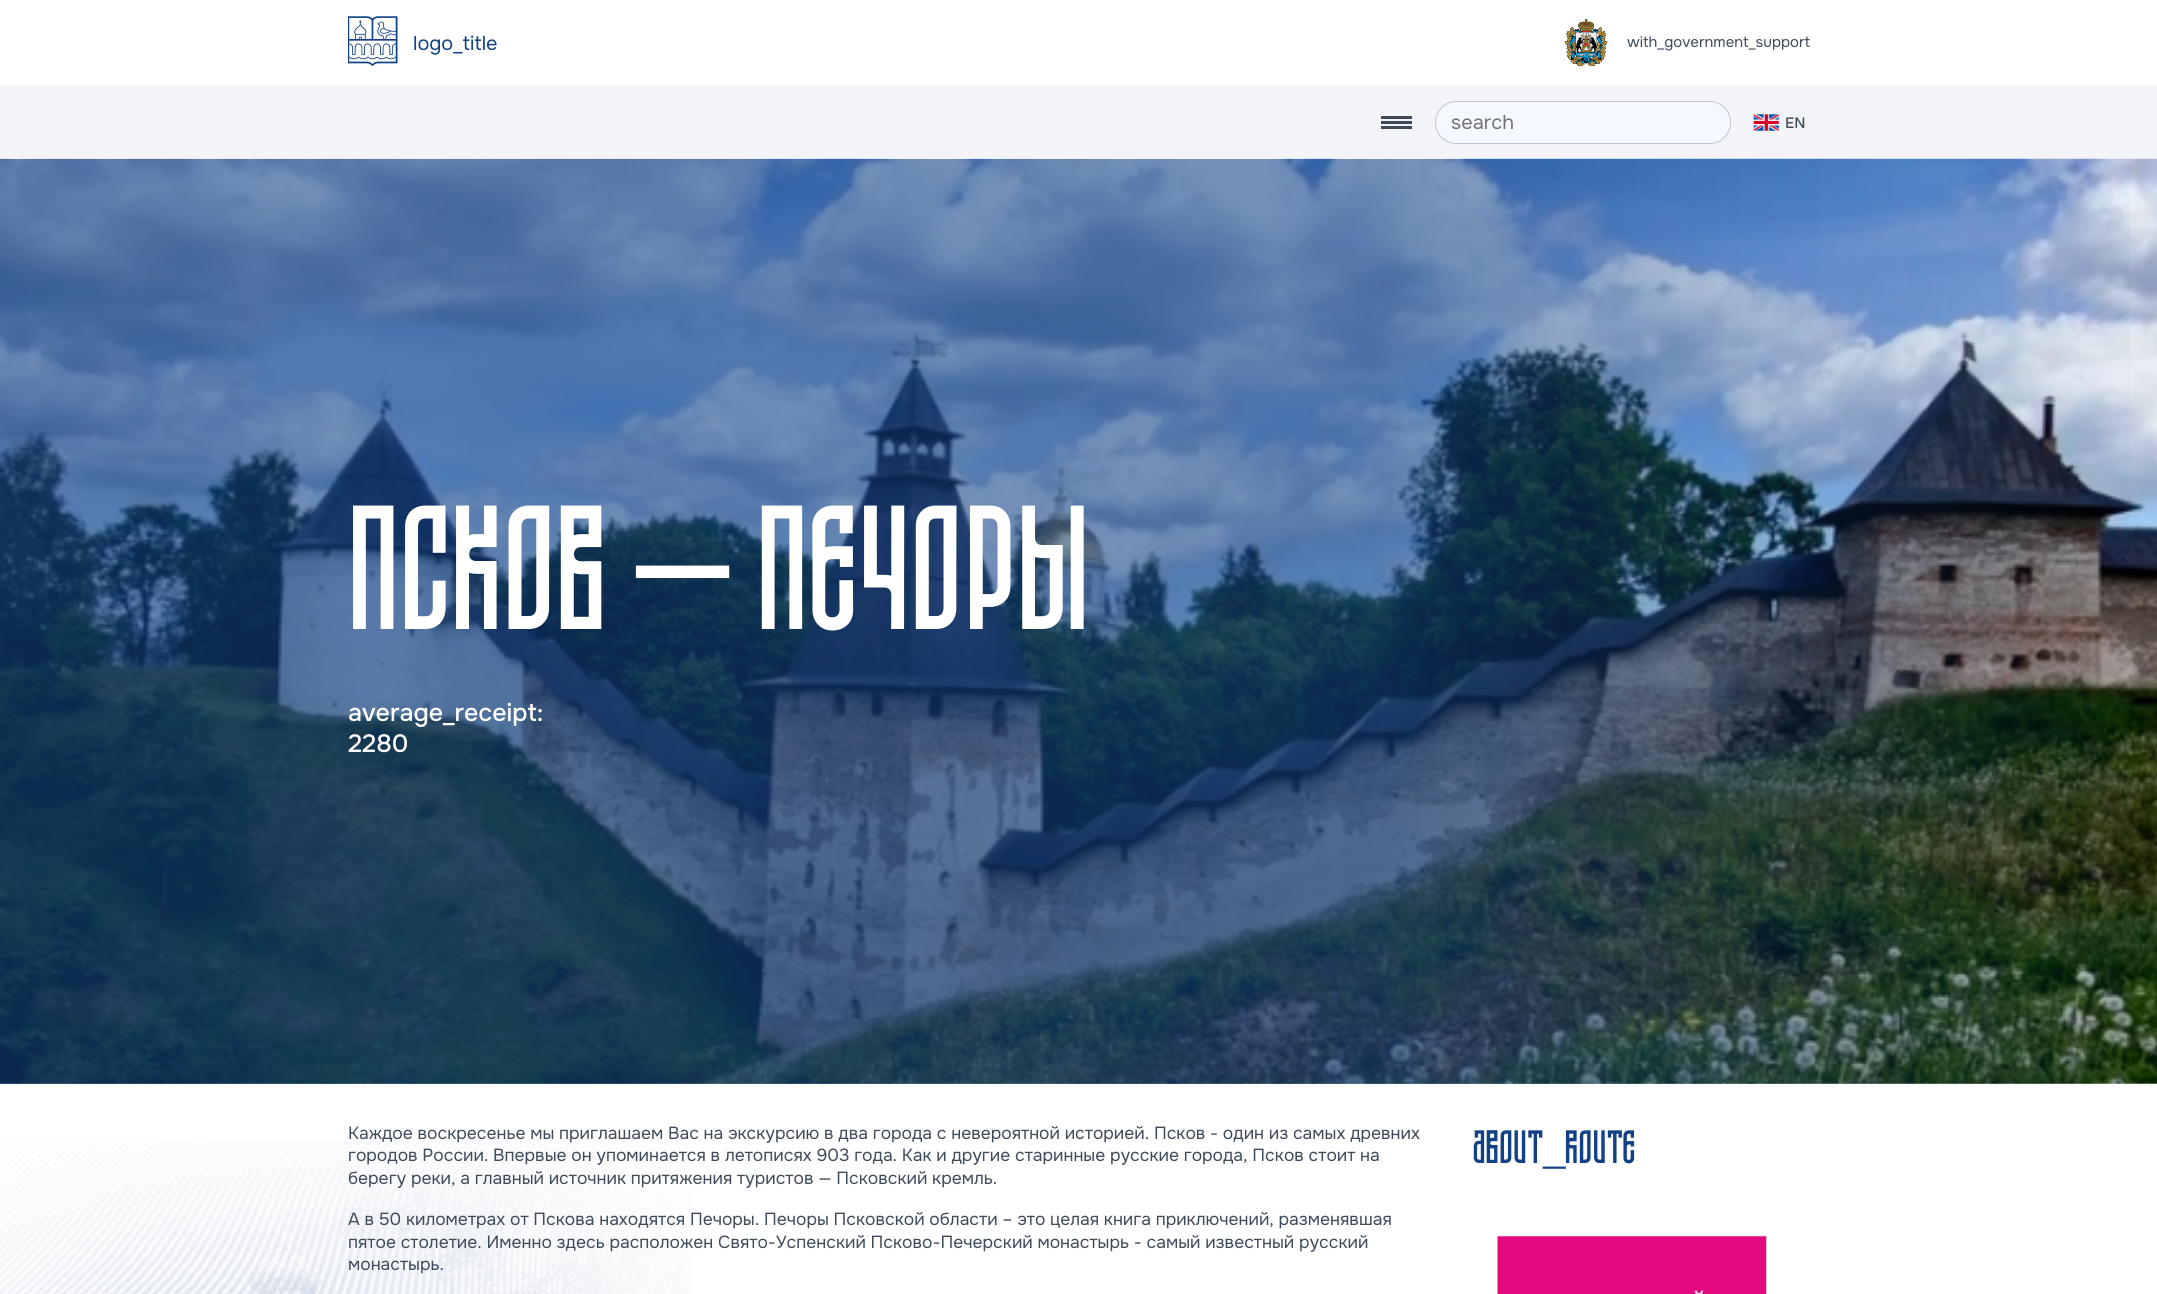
#include <cairo.h>
#include <math.h>
#include <stddef.h>

static cairo_t *ctx;

static void use_color(int r, int g, int b) {
    cairo_set_source_rgb(ctx, r / 255.0, g / 255.0, b / 255.0);
}

static void round_rect(double x, double y, double w, double h, double r) {
    cairo_new_sub_path(ctx);
    cairo_arc(ctx, x + w - r, y + h - r, r, 0, M_PI / 2);
    cairo_arc(ctx, x + r, y + h - r, r, M_PI / 2, M_PI);
    cairo_arc(ctx, x + r, y + r, r, M_PI, 1.5 * M_PI);
    cairo_arc(ctx, x + w - r, y + r, r, 1.5 * M_PI, 2 * M_PI);
    cairo_close_path(ctx);
}

static void picture(const char *path, double x, double y, double w, double h) {
    cairo_surface_t *image = cairo_image_surface_create_from_png(path);
    cairo_save(ctx);
    cairo_set_source_surface(ctx, image, x, y);
    cairo_rectangle(ctx, x, y, w, h);
    cairo_fill(ctx);
    cairo_restore(ctx);
    cairo_surface_destroy(image);
}

int main(void) {
    cairo_surface_t *surface = cairo_image_surface_create(CAIRO_FORMAT_RGB24, 2157, 1294);
    ctx = cairo_create(surface);
    cairo_font_options_t *options = cairo_font_options_create();
    cairo_font_options_set_hint_metrics(options, CAIRO_HINT_METRICS_OFF);
    cairo_font_options_set_hint_style(options, CAIRO_HINT_STYLE_NONE);
    cairo_set_font_options(ctx, options);
    cairo_set_miter_limit(ctx, 4);
    cairo_pattern_t *gradient;
    use_color(255, 255, 255);
    cairo_paint(ctx);
    picture("img1.png", 348, 16, 50, 50);
    cairo_select_font_face(ctx, "Onest", CAIRO_FONT_SLANT_NORMAL, CAIRO_FONT_WEIGHT_NORMAL);
    cairo_set_font_size(ctx, 20);
    use_color(18, 66, 133);
    cairo_move_to(ctx, 413, 50);
    cairo_show_text(ctx, "logo_title");
    picture("img2.png", 1565, 19, 43, 47);
    cairo_set_font_size(ctx, 15);
    use_color(63, 75, 91);
    cairo_move_to(ctx, 1627, 47);
    cairo_show_text(ctx, "with_government_support");
    use_color(242, 244, 247);
    cairo_rectangle(ctx, 0, 86, 2157, 73);
    cairo_fill(ctx);
    use_color(63, 75, 91);
    cairo_rectangle(ctx, 1381, 116, 31, 3);
    cairo_fill(ctx);
    cairo_rectangle(ctx, 1381, 121, 31, 3);
    cairo_fill(ctx);
    cairo_rectangle(ctx, 1381, 126, 31, 3);
    cairo_fill(ctx);
    use_color(245, 249, 255);
    round_rect(1435, 101, 296, 43, 21.5);
    cairo_fill(ctx);
    round_rect(1435.5, 101.5, 295, 42, 21);
    cairo_set_source_rgba(ctx, 0.247, 0.294, 0.357, 0.3);
    cairo_set_line_width(ctx, 1);
    cairo_stroke(ctx);
    cairo_set_font_size(ctx, 20);
    use_color(117, 117, 117);
    cairo_move_to(ctx, 1451, 129);
    cairo_show_text(ctx, "search");
    picture("img3.png", 1753, 114, 26, 17);
    cairo_select_font_face(ctx, "Onest Medium", CAIRO_FONT_SLANT_NORMAL, CAIRO_FONT_WEIGHT_NORMAL);
    cairo_set_font_size(ctx, 15);
    use_color(63, 75, 91);
    cairo_move_to(ctx, 1785, 128);
    cairo_show_text(ctx, "EN");
    picture("img4.png", 0, 158, 2157, 926);
    gradient = cairo_pattern_create_linear(0, 621, 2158, 621);
    cairo_pattern_add_color_stop_rgba(gradient, 0.64, 0.071, 0.259, 0.522, 0.59);
    cairo_pattern_add_color_stop_rgba(gradient, 1, 0.071, 0.259, 0.522, 0);
    cairo_set_source(ctx, gradient);
    cairo_pattern_destroy(gradient);
    cairo_rectangle(ctx, 0, 159, 2130, 925);
    cairo_fill(ctx);
    cairo_select_font_face(ctx, "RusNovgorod", CAIRO_FONT_SLANT_NORMAL, CAIRO_FONT_WEIGHT_NORMAL);
    cairo_set_font_size(ctx, 170);
    use_color(255, 255, 255);
    cairo_move_to(ctx, 348, 629);
    cairo_show_text(ctx, "ПСКОВ – ПЕЧОРЫ");
    cairo_select_font_face(ctx, "Onest Medium", CAIRO_FONT_SLANT_NORMAL, CAIRO_FONT_WEIGHT_NORMAL);
    cairo_set_font_size(ctx, 25);
    cairo_move_to(ctx, 348, 721);
    cairo_show_text(ctx, "average_receipt:");
    cairo_move_to(ctx, 348, 752);
    cairo_show_text(ctx, "2280");
    picture("img5.png", 0, 1139, 692, 155);
    cairo_select_font_face(ctx, "Onest", CAIRO_FONT_SLANT_NORMAL, CAIRO_FONT_WEIGHT_NORMAL);
    cairo_set_font_size(ctx, 17.5);
    use_color(63, 75, 91);
    cairo_move_to(ctx, 348, 1139);
    cairo_show_text(ctx, "Каждое воскресенье мы приглашаем Вас на экскурсию в два города с невероятной историей. Псков - один из самых древних");
    cairo_move_to(ctx, 348, 1161);
    cairo_show_text(ctx, "городов России. Впервые он упоминается в летописях 903 года. Как и другие старинные русские города, Псков стоит на");
    cairo_move_to(ctx, 348, 1184);
    cairo_show_text(ctx, "берегу реки, а главный источник притяжения туристов — Псковский кремль.");
    cairo_move_to(ctx, 348, 1225);
    cairo_show_text(ctx, "А в 50 километрах от Пскова находятся Печоры. Печоры Псковской области – это целая книга приключений, разменявшая");
    cairo_move_to(ctx, 348, 1248);
    cairo_show_text(ctx, "пятое столетие. Именно здесь расположен Свято-Успенский Псково-Печерский монастырь - самый известный русский");
    cairo_move_to(ctx, 348, 1270);
    cairo_show_text(ctx, "монастырь.");
    cairo_select_font_face(ctx, "RusNovgorod", CAIRO_FONT_SLANT_NORMAL, CAIRO_FONT_WEIGHT_NORMAL);
    cairo_set_font_size(ctx, 45);
    use_color(18, 66, 133);
    cairo_move_to(ctx, 1473, 1163);
    cairo_show_text(ctx, "ABOUT");
    cairo_move_to(ctx, 1565, 1163);
    cairo_show_text(ctx, "ROUTE");
    cairo_select_font_face(ctx, "Liberation Serif", CAIRO_FONT_SLANT_NORMAL, CAIRO_FONT_WEIGHT_NORMAL);
    cairo_move_to(ctx, 1543, 1163);
    cairo_show_text(ctx, "_");
    picture("img6.png", 1497, 1236, 270, 58);
    cairo_surface_write_to_png(surface, "result.png");
    cairo_font_options_destroy(options);
    cairo_destroy(ctx);
    cairo_surface_destroy(surface);
    return 0;
}
